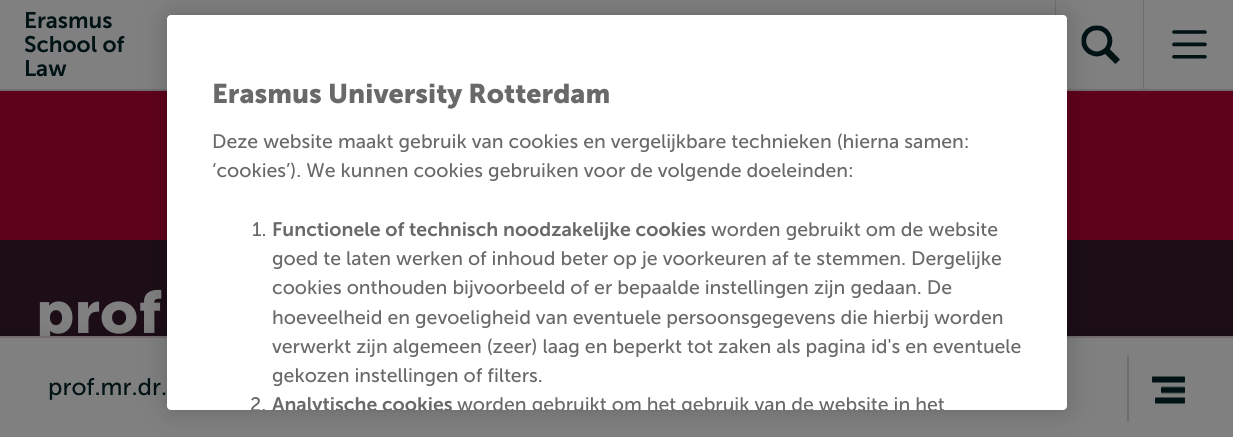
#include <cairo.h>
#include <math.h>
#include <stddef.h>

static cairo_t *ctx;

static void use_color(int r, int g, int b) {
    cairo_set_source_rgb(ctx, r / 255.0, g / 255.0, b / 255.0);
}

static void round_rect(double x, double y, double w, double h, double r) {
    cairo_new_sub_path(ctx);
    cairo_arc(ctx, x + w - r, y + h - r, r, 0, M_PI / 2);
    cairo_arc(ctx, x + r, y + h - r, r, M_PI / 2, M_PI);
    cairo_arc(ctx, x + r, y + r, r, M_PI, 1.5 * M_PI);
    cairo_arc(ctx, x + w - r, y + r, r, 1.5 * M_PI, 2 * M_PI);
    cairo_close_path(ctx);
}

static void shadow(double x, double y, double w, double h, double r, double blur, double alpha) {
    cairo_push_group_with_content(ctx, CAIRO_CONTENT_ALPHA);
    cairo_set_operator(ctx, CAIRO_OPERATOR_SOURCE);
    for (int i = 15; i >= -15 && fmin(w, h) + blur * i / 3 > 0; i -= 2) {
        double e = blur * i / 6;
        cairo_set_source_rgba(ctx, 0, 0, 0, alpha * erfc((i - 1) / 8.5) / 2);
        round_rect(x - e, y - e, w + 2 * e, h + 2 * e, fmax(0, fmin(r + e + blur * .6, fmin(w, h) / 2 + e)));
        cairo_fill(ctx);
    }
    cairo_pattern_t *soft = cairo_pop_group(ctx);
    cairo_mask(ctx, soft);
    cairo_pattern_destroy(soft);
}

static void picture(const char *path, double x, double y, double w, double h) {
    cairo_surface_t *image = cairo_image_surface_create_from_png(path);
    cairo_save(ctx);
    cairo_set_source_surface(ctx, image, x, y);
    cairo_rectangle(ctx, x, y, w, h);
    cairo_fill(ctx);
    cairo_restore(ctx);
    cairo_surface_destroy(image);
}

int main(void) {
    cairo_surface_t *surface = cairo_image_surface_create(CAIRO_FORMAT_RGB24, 1233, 437);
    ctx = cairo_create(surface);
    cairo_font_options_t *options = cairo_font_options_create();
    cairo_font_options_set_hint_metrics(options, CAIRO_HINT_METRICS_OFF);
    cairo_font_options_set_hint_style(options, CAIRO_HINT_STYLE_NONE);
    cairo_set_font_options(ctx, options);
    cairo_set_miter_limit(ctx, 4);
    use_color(128, 128, 128);
    cairo_paint(ctx);
    use_color(114, 109, 108);
    cairo_rectangle(ctx, 0, 89, 1233, 2);
    cairo_fill(ctx);
    cairo_select_font_face(ctx, "Museo Sans SemiBold", CAIRO_FONT_SLANT_NORMAL, CAIRO_FONT_WEIGHT_NORMAL);
    cairo_set_font_size(ctx, 22.5);
    use_color(0, 18, 20);
    cairo_move_to(ctx, 24, 28);
    cairo_show_text(ctx, "Erasmus");
    cairo_move_to(ctx, 24, 52);
    cairo_show_text(ctx, "School of");
    cairo_move_to(ctx, 24, 76);
    cairo_show_text(ctx, "Law");
    use_color(114, 109, 108);
    cairo_new_path(ctx);
    cairo_move_to(ctx, 1055, 0);
    cairo_line_to(ctx, 1055, 89);
    cairo_line_to(ctx, 1143, 89);
    cairo_line_to(ctx, 1143, 88);
    cairo_line_to(ctx, 1056, 88);
    cairo_line_to(ctx, 1056, 0);
    cairo_close_path(ctx);
    cairo_fill(ctx);
    use_color(128, 128, 128);
    cairo_rectangle(ctx, 1056, 88, 87, 1);
    cairo_fill(ctx);
    picture("img1.png", 1081, 25, 39, 39);
    use_color(114, 109, 108);
    cairo_new_path(ctx);
    cairo_move_to(ctx, 1143, 0);
    cairo_line_to(ctx, 1143, 89);
    cairo_line_to(ctx, 1232, 89);
    cairo_line_to(ctx, 1232, 88);
    cairo_line_to(ctx, 1144, 88);
    cairo_line_to(ctx, 1144, 0);
    cairo_close_path(ctx);
    cairo_fill(ctx);
    use_color(128, 128, 128);
    cairo_rectangle(ctx, 1145, 88, 87, 1);
    cairo_fill(ctx);
    picture("img2.png", 1172, 30, 35, 29);
    use_color(94, 2, 27);
    cairo_rectangle(ctx, 0, 91, 1233, 149);
    cairo_fill(ctx);
    use_color(28, 13, 22);
    cairo_rectangle(ctx, 0, 240, 1233, 96);
    cairo_fill(ctx);
    cairo_select_font_face(ctx, "Museo Sans", CAIRO_FONT_SLANT_NORMAL, CAIRO_FONT_WEIGHT_BOLD);
    cairo_set_font_size(ctx, 60);
    use_color(128, 128, 128);
    cairo_move_to(ctx, 36, 333);
    cairo_show_text(ctx, "prof");
    use_color(0, 0, 0);
    shadow(0, 335, 1233, 102, 0, 7.5, 0.1);
    use_color(128, 128, 128);
    cairo_rectangle(ctx, 0, 338, 1233, 99);
    cairo_fill(ctx);
    use_color(114, 109, 108);
    cairo_rectangle(ctx, 0, 336, 1233, 2);
    cairo_fill(ctx);
    cairo_select_font_face(ctx, "Museo Sans", CAIRO_FONT_SLANT_NORMAL, CAIRO_FONT_WEIGHT_NORMAL);
    cairo_set_font_size(ctx, 24);
    use_color(0, 18, 20);
    cairo_move_to(ctx, 48, 395);
    cairo_show_text(ctx, "prof.mr.dr.");
    use_color(114, 109, 108);
    cairo_rectangle(ctx, 1127, 356, 2, 66);
    cairo_fill(ctx);
    picture("img3.png", 1152, 376, 33, 28);
    use_color(0, 0, 0);
    shadow(167, 15, 900, 395, 4, 13.5, 0.2);
    use_color(255, 255, 255);
    round_rect(167, 15, 900, 395, 4);
    cairo_fill(ctx);
    cairo_select_font_face(ctx, "Museo Sans", CAIRO_FONT_SLANT_NORMAL, CAIRO_FONT_WEIGHT_BOLD);
    cairo_set_font_size(ctx, 27);
    use_color(105, 105, 105);
    cairo_move_to(ctx, 212, 103);
    cairo_show_text(ctx, "Erasmus University Rotterdam");
    cairo_select_font_face(ctx, "Museo Sans", CAIRO_FONT_SLANT_NORMAL, CAIRO_FONT_WEIGHT_NORMAL);
    cairo_set_font_size(ctx, 19.5);
    cairo_move_to(ctx, 212, 148);
    cairo_show_text(ctx, "Deze website maakt gebruik van cookies en vergelijkbare technieken (hierna samen:");
    cairo_move_to(ctx, 212, 177);
    cairo_show_text(ctx, "‘cookies’). We kunnen cookies gebruiken voor de volgende doeleinden:");
    cairo_move_to(ctx, 252, 236);
    cairo_show_text(ctx, "1.");
    cairo_select_font_face(ctx, "Museo Sans SemiBold", CAIRO_FONT_SLANT_NORMAL, CAIRO_FONT_WEIGHT_NORMAL);
    cairo_move_to(ctx, 272, 236);
    cairo_show_text(ctx, "Functionele of technisch noodzakelijke cookies");
    cairo_select_font_face(ctx, "Museo Sans", CAIRO_FONT_SLANT_NORMAL, CAIRO_FONT_WEIGHT_NORMAL);
    cairo_move_to(ctx, 711, 236);
    cairo_show_text(ctx, "worden gebruikt om de website");
    cairo_move_to(ctx, 272, 265);
    cairo_show_text(ctx, "goed te laten werken of inhoud beter op je voorkeuren af te stemmen. Dergelijke");
    cairo_move_to(ctx, 272, 294);
    cairo_show_text(ctx, "cookies onthouden bijvoorbeeld of er bepaalde instellingen zijn gedaan. De");
    cairo_move_to(ctx, 272, 324);
    cairo_show_text(ctx, "hoeveelheid en gevoeligheid van eventuele persoonsgegevens die hierbij worden");
    cairo_move_to(ctx, 272, 353);
    cairo_show_text(ctx, "verwerkt zijn algemeen (zeer) laag en beperkt tot zaken als pagina id's en eventuele");
    cairo_move_to(ctx, 272, 382);
    cairo_show_text(ctx, "gekozen instellingen of filters.");
    cairo_save(ctx);
    round_rect(167, 15, 900, 395, 4);
    cairo_clip(ctx);
    cairo_move_to(ctx, 250, 411);
    cairo_show_text(ctx, "2.");
    cairo_select_font_face(ctx, "Museo Sans SemiBold", CAIRO_FONT_SLANT_NORMAL, CAIRO_FONT_WEIGHT_NORMAL);
    cairo_move_to(ctx, 272, 411);
    cairo_show_text(ctx, "Analytische cookies");
    cairo_select_font_face(ctx, "Museo Sans", CAIRO_FONT_SLANT_NORMAL, CAIRO_FONT_WEIGHT_NORMAL);
    cairo_move_to(ctx, 457, 411);
    cairo_show_text(ctx, "worden gebruikt om het gebruik van de website in het");
    cairo_restore(ctx);
    cairo_surface_write_to_png(surface, "result.png");
    cairo_font_options_destroy(options);
    cairo_destroy(ctx);
    cairo_surface_destroy(surface);
    return 0;
}
